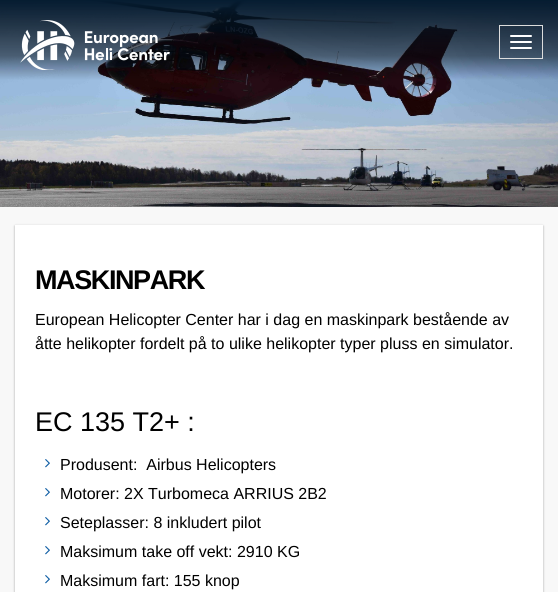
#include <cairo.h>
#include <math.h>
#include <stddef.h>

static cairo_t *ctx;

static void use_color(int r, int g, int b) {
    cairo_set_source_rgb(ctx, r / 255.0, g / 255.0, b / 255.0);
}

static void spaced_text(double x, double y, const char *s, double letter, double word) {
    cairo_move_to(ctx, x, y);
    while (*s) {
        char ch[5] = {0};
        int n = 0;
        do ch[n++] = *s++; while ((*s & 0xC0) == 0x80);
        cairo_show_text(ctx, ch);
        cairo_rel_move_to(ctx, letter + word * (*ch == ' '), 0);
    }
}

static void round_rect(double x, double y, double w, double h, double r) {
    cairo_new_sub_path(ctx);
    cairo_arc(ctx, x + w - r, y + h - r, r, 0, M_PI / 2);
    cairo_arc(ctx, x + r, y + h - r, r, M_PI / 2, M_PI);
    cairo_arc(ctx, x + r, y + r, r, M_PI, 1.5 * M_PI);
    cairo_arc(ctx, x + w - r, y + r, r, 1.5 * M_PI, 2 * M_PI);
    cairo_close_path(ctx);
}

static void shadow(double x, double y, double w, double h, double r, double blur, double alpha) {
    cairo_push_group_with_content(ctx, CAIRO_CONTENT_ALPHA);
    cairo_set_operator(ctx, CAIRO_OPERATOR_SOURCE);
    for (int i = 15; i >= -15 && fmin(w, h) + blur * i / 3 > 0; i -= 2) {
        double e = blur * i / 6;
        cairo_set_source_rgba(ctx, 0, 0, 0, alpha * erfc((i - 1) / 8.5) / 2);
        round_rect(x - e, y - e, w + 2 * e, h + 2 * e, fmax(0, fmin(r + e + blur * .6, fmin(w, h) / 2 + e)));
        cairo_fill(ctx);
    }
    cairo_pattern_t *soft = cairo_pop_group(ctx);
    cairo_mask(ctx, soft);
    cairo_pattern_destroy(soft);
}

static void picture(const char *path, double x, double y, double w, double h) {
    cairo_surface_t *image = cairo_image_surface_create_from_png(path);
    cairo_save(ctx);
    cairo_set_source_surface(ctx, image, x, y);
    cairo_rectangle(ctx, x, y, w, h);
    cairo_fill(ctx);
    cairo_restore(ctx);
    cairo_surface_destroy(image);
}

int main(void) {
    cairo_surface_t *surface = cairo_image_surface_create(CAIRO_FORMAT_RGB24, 558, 592);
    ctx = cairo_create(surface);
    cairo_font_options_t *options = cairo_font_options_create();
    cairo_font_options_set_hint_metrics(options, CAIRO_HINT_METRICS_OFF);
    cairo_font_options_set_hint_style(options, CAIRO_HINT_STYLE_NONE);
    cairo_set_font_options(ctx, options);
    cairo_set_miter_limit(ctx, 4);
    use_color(248, 248, 248);
    cairo_paint(ctx);
    picture("img2.png", 0, 0, 558, 207);
    picture("img1.png", 20, 20, 150, 50);
    cairo_rectangle(ctx, 499.5, 25.5, 43, 33);
    use_color(221, 221, 221);
    cairo_set_line_width(ctx, 1);
    cairo_stroke(ctx);
    use_color(255, 255, 255);
    round_rect(510, 35, 22, 2, 1);
    cairo_fill(ctx);
    round_rect(510, 41, 22, 2, 1);
    cairo_fill(ctx);
    round_rect(510, 47, 22, 2, 1);
    cairo_fill(ctx);
    use_color(0, 0, 0);
    shadow(15, 226, 528, 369, 0, 1, 0.24);
    shadow(15, 226, 528, 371, 0, 1.5, 0.12);
    use_color(255, 255, 255);
    cairo_rectangle(ctx, 15, 225, 528, 367);
    cairo_fill(ctx);
    cairo_select_font_face(ctx, "Liberation Sans", CAIRO_FONT_SLANT_NORMAL, CAIRO_FONT_WEIGHT_BOLD);
    cairo_set_font_size(ctx, 27);
    use_color(0, 0, 0);
    spaced_text(35, 289, "MASKINPARK", -1.4, 0);
    cairo_select_font_face(ctx, "Liberation Sans", CAIRO_FONT_SLANT_NORMAL, CAIRO_FONT_WEIGHT_NORMAL);
    cairo_set_font_size(ctx, 16);
    cairo_move_to(ctx, 35, 325);
    cairo_show_text(ctx, "European Helicopter Center har i dag en maskinpark bestående av");
    cairo_move_to(ctx, 35, 349);
    cairo_show_text(ctx, "åtte helikopter fordelt på to ulike helikopter typer pluss en simulator.");
    cairo_set_font_size(ctx, 27);
    cairo_move_to(ctx, 35, 431);
    cairo_show_text(ctx, "EC 135 T2+ :");
    picture("img3.png", 45, 459, 5, 9);
    cairo_set_font_size(ctx, 16);
    cairo_move_to(ctx, 60, 470);
    cairo_show_text(ctx, "Produsent:  Airbus Helicopters");
    picture("img3.png", 45, 488, 5, 9);
    cairo_move_to(ctx, 60, 499);
    cairo_show_text(ctx, "Motorer: 2X Turbomeca ARRIUS 2B2");
    picture("img3.png", 45, 517, 5, 9);
    cairo_move_to(ctx, 60, 528);
    cairo_show_text(ctx, "Seteplasser: 8 inkludert pilot");
    picture("img3.png", 45, 546, 5, 9);
    cairo_move_to(ctx, 60, 557);
    cairo_show_text(ctx, "Maksimum take off vekt: 2910 KG");
    picture("img3.png", 45, 575, 5, 9);
    cairo_move_to(ctx, 60, 586);
    cairo_show_text(ctx, "Maksimum fart: 155 knop");
    cairo_surface_write_to_png(surface, "result.png");
    cairo_font_options_destroy(options);
    cairo_destroy(ctx);
    cairo_surface_destroy(surface);
    return 0;
}
